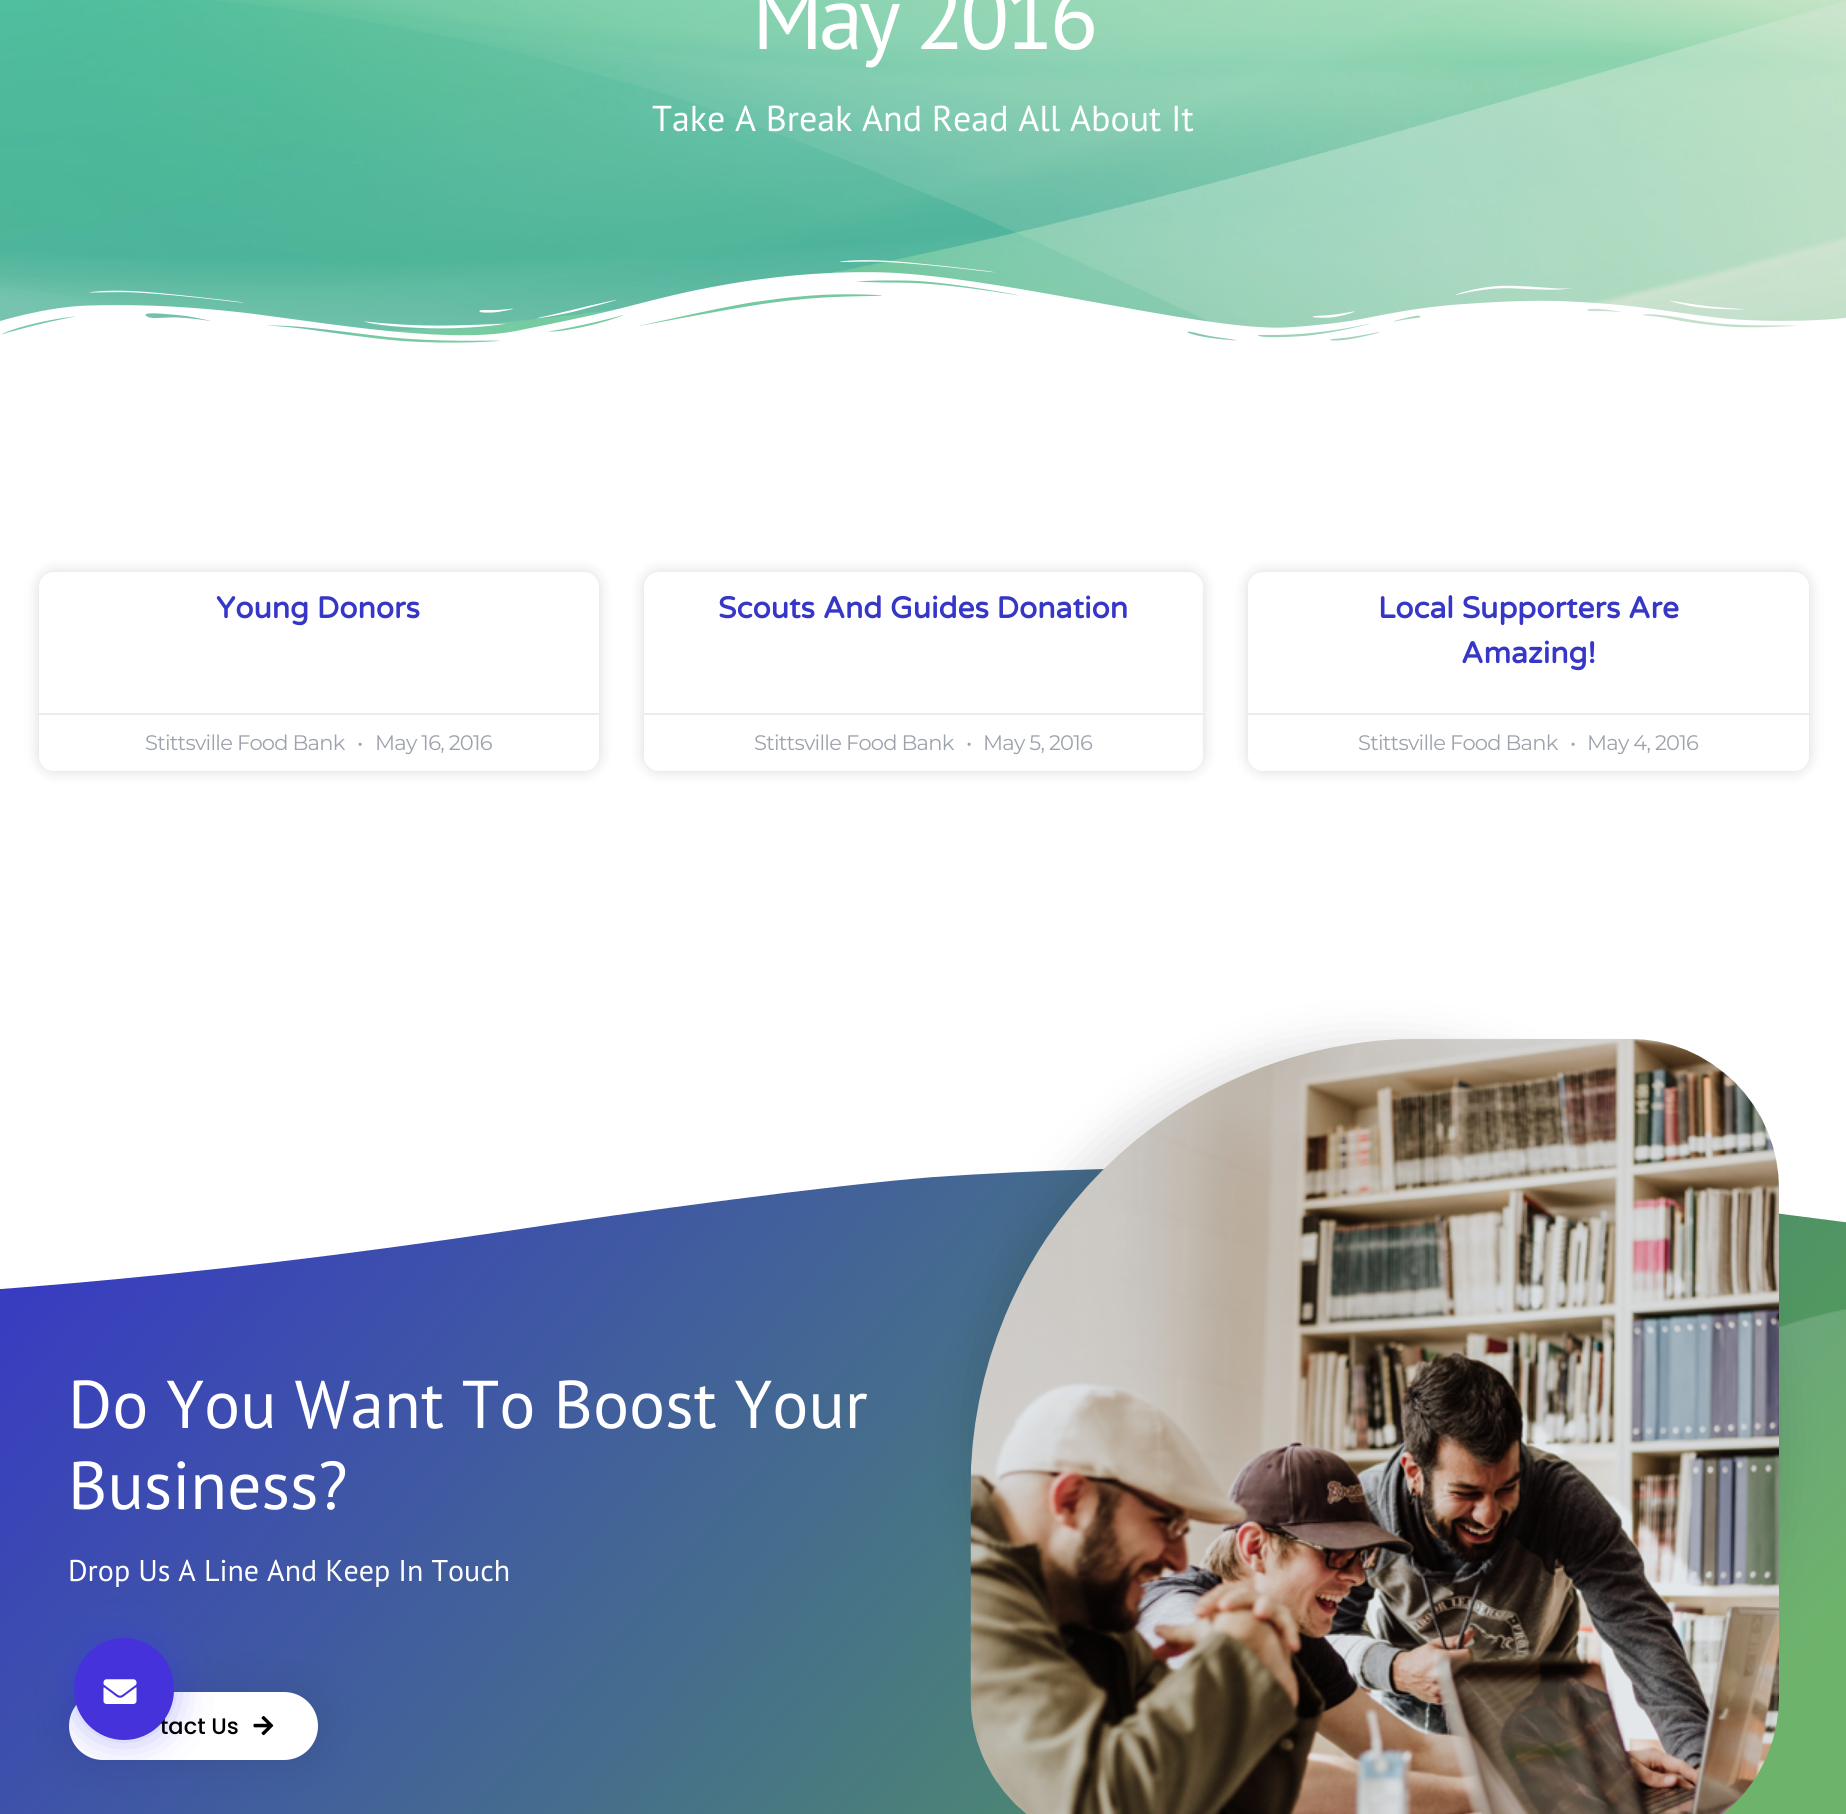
#include <cairo.h>
#include <math.h>
#include <stddef.h>

static cairo_t *ctx;

static void use_color(int r, int g, int b) {
    cairo_set_source_rgb(ctx, r / 255.0, g / 255.0, b / 255.0);
}

static void spaced_text(double x, double y, const char *s, double letter, double word) {
    cairo_move_to(ctx, x, y);
    while (*s) {
        char ch[5] = {0};
        int n = 0;
        do ch[n++] = *s++; while ((*s & 0xC0) == 0x80);
        cairo_show_text(ctx, ch);
        cairo_rel_move_to(ctx, letter + word * (*ch == ' '), 0);
    }
}

static void round_rect(double x, double y, double w, double h, double r) {
    cairo_new_sub_path(ctx);
    cairo_arc(ctx, x + w - r, y + h - r, r, 0, M_PI / 2);
    cairo_arc(ctx, x + r, y + h - r, r, M_PI / 2, M_PI);
    cairo_arc(ctx, x + r, y + r, r, M_PI, 1.5 * M_PI);
    cairo_arc(ctx, x + w - r, y + r, r, 1.5 * M_PI, 2 * M_PI);
    cairo_close_path(ctx);
}

static void shadow(double x, double y, double w, double h, double r, double blur, double alpha) {
    cairo_push_group_with_content(ctx, CAIRO_CONTENT_ALPHA);
    cairo_set_operator(ctx, CAIRO_OPERATOR_SOURCE);
    for (int i = 15; i >= -15 && fmin(w, h) + blur * i / 3 > 0; i -= 2) {
        double e = blur * i / 6;
        cairo_set_source_rgba(ctx, 0, 0, 0, alpha * erfc((i - 1) / 8.5) / 2);
        round_rect(x - e, y - e, w + 2 * e, h + 2 * e, fmax(0, fmin(r + e + blur * .6, fmin(w, h) / 2 + e)));
        cairo_fill(ctx);
    }
    cairo_pattern_t *soft = cairo_pop_group(ctx);
    cairo_mask(ctx, soft);
    cairo_pattern_destroy(soft);
}

static void picture(const char *path, double x, double y, double w, double h) {
    cairo_surface_t *image = cairo_image_surface_create_from_png(path);
    cairo_save(ctx);
    cairo_set_source_surface(ctx, image, x, y);
    cairo_rectangle(ctx, x, y, w, h);
    cairo_fill(ctx);
    cairo_restore(ctx);
    cairo_surface_destroy(image);
}

int main(void) {
    cairo_surface_t *surface = cairo_image_surface_create(CAIRO_FORMAT_RGB24, 1846, 1814);
    ctx = cairo_create(surface);
    cairo_font_options_t *options = cairo_font_options_create();
    cairo_font_options_set_hint_metrics(options, CAIRO_HINT_METRICS_OFF);
    cairo_font_options_set_hint_style(options, CAIRO_HINT_STYLE_NONE);
    cairo_set_font_options(ctx, options);
    cairo_set_miter_limit(ctx, 4);
    cairo_pattern_t *gradient;
    use_color(255, 255, 255);
    cairo_paint(ctx);
    picture("img1.png", 0, 0, 1846, 343);
    cairo_select_font_face(ctx, "PT Sans", CAIRO_FONT_SLANT_NORMAL, CAIRO_FONT_WEIGHT_NORMAL);
    cairo_set_font_size(ctx, 90);
    use_color(255, 255, 255);
    spaced_text(752, 49, "May 2016", -4.5, 0);
    cairo_set_font_size(ctx, 36);
    cairo_move_to(ctx, 652, 131);
    cairo_show_text(ctx, "Take A Break And Read All About It");
    gradient = cairo_pattern_create_linear(185, 941, 1662, 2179);
    cairo_pattern_add_color_stop_rgba(gradient, 0, 0.212, 0.212, 0.78, 1);
    cairo_pattern_add_color_stop_rgba(gradient, 0.89, 0.333, 0.651, 0.318, 1);
    cairo_set_source(ctx, gradient);
    cairo_pattern_destroy(gradient);
    cairo_rectangle(ctx, 0, 1169, 1846, 645);
    cairo_fill(ctx);
    use_color(0, 0, 0);
    shadow(69, 1692, 249, 68, 34, 22.5, 0.1);
    use_color(255, 255, 255);
    round_rect(69, 1692, 249, 68, 34);
    cairo_fill(ctx);
    use_color(53, 56, 240);
    shadow(74, 1638, 100, 102, 50, 19, 0.35);
    cairo_select_font_face(ctx, "Poppins Medium", CAIRO_FONT_SLANT_NORMAL, CAIRO_FONT_WEIGHT_NORMAL);
    cairo_set_font_size(ctx, 22.5);
    use_color(0, 0, 0);
    cairo_move_to(ctx, 160, 1734);
    cairo_show_text(ctx, "tact Us");
    use_color(70, 50, 218);
    round_rect(74, 1638, 100, 102, 50);
    cairo_fill(ctx);
    picture("img2.png", 103, 1679, 34, 25);
    picture("img3.png", 0, 260, 1846, 94);
    use_color(0, 0, 0);
    shadow(39, 572, 560, 199, 15, 7.5, 0.15);
    use_color(255, 255, 255);
    round_rect(39, 572, 560, 199, 15);
    cairo_fill(ctx);
    cairo_select_font_face(ctx, "Varela Round", CAIRO_FONT_SLANT_NORMAL, CAIRO_FONT_WEIGHT_BOLD);
    cairo_set_font_size(ctx, 30);
    use_color(54, 54, 199);
    cairo_move_to(ctx, 216, 618);
    cairo_show_text(ctx, "Young Donors");
    use_color(236, 236, 238);
    cairo_rectangle(ctx, 39, 713, 560, 2);
    cairo_fill(ctx);
    cairo_select_font_face(ctx, "Montserrat", CAIRO_FONT_SLANT_NORMAL, CAIRO_FONT_WEIGHT_NORMAL);
    cairo_set_font_size(ctx, 21);
    use_color(158, 162, 172);
    spaced_text(145, 750, "Stittsville Food Bank", -0.75, 0);
    spaced_text(357, 750, "•", -0.75, 0);
    spaced_text(375, 750, "May 16, 2016", -0.75, 0);
    use_color(0, 0, 0);
    shadow(644, 572, 559, 199, 15, 7.5, 0.15);
    use_color(255, 255, 255);
    round_rect(644, 572, 559, 199, 15);
    cairo_fill(ctx);
    cairo_select_font_face(ctx, "Varela Round", CAIRO_FONT_SLANT_NORMAL, CAIRO_FONT_WEIGHT_BOLD);
    cairo_set_font_size(ctx, 30);
    use_color(54, 54, 199);
    cairo_move_to(ctx, 718, 618);
    cairo_show_text(ctx, "Scouts And Guides Donation");
    use_color(236, 236, 238);
    cairo_rectangle(ctx, 644, 713, 559, 2);
    cairo_fill(ctx);
    cairo_select_font_face(ctx, "Montserrat", CAIRO_FONT_SLANT_NORMAL, CAIRO_FONT_WEIGHT_NORMAL);
    cairo_set_font_size(ctx, 21);
    use_color(158, 162, 172);
    spaced_text(754, 750, "Stittsville Food Bank", -0.75, 0);
    spaced_text(966, 750, "•", -0.75, 0);
    spaced_text(983, 750, "May 5, 2016", -0.75, 0);
    use_color(0, 0, 0);
    shadow(1248, 572, 561, 199, 15, 7.5, 0.15);
    use_color(255, 255, 255);
    round_rect(1248, 572, 561, 199, 15);
    cairo_fill(ctx);
    cairo_select_font_face(ctx, "Varela Round", CAIRO_FONT_SLANT_NORMAL, CAIRO_FONT_WEIGHT_BOLD);
    cairo_set_font_size(ctx, 30);
    use_color(54, 54, 199);
    cairo_move_to(ctx, 1378, 618);
    cairo_show_text(ctx, "Local Supporters Are");
    cairo_move_to(ctx, 1461, 663);
    cairo_show_text(ctx, "Amazing!");
    use_color(236, 236, 238);
    cairo_rectangle(ctx, 1248, 713, 561, 2);
    cairo_fill(ctx);
    cairo_select_font_face(ctx, "Montserrat", CAIRO_FONT_SLANT_NORMAL, CAIRO_FONT_WEIGHT_NORMAL);
    cairo_set_font_size(ctx, 21);
    use_color(158, 162, 172);
    spaced_text(1358, 750, "Stittsville Food Bank", -0.75, 0);
    spaced_text(1570, 750, "•", -0.75, 0);
    spaced_text(1587, 750, "May 4, 2016", -0.75, 0);
    use_color(255, 255, 255);
    cairo_new_path(ctx);
    cairo_move_to(ctx, 1254, 1169);
    cairo_curve_to(ctx, 1158, 1166, 1036, 1170, 934, 1177);
    cairo_curve_to(ctx, 833, 1185, 632, 1212, 507, 1231);
    cairo_curve_to(ctx, 184, 1279, -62, 1298, -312, 1305);
    cairo_curve_to(ctx, -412, 1308, -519, 1311, -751, 1302);
    cairo_curve_to(ctx, -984, 1293, -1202, 1263, -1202, 1263);
    cairo_line_to(ctx, -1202, 1160);
    cairo_line_to(ctx, 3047, 1160);
    cairo_line_to(ctx, 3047, 1205);
    cairo_curve_to(ctx, 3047, 1205, 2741, 1254, 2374, 1251);
    cairo_curve_to(ctx, 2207, 1250, 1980, 1241, 1805, 1217);
    cairo_curve_to(ctx, 1714, 1205, 1583, 1190, 1466, 1181);
    cairo_curve_to(ctx, 1350, 1171, 1298, 1171, 1254, 1169);
    cairo_close_path(ctx);
    cairo_fill(ctx);
    cairo_select_font_face(ctx, "PT Sans", CAIRO_FONT_SLANT_NORMAL, CAIRO_FONT_WEIGHT_NORMAL);
    cairo_set_font_size(ctx, 67.5);
    cairo_move_to(ctx, 68, 1428);
    cairo_show_text(ctx, "Do You Want To Boost Your");
    cairo_move_to(ctx, 68, 1509);
    cairo_show_text(ctx, "Business?");
    cairo_set_font_size(ctx, 30);
    cairo_move_to(ctx, 68, 1581);
    cairo_show_text(ctx, "Drop Us A Line And Keep In Touch");
    picture("img4.png", 253, 1716, 21, 20);
    picture("img6.png", 1723, 1309, 123, 505);
    use_color(0, 0, 0);
    shadow(971, 1040, 808, 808, 450, 22.5, 0.12);
    picture("img5.png", 970, 1038, 809, 776);
    cairo_surface_write_to_png(surface, "result.png");
    cairo_font_options_destroy(options);
    cairo_destroy(ctx);
    cairo_surface_destroy(surface);
    return 0;
}
